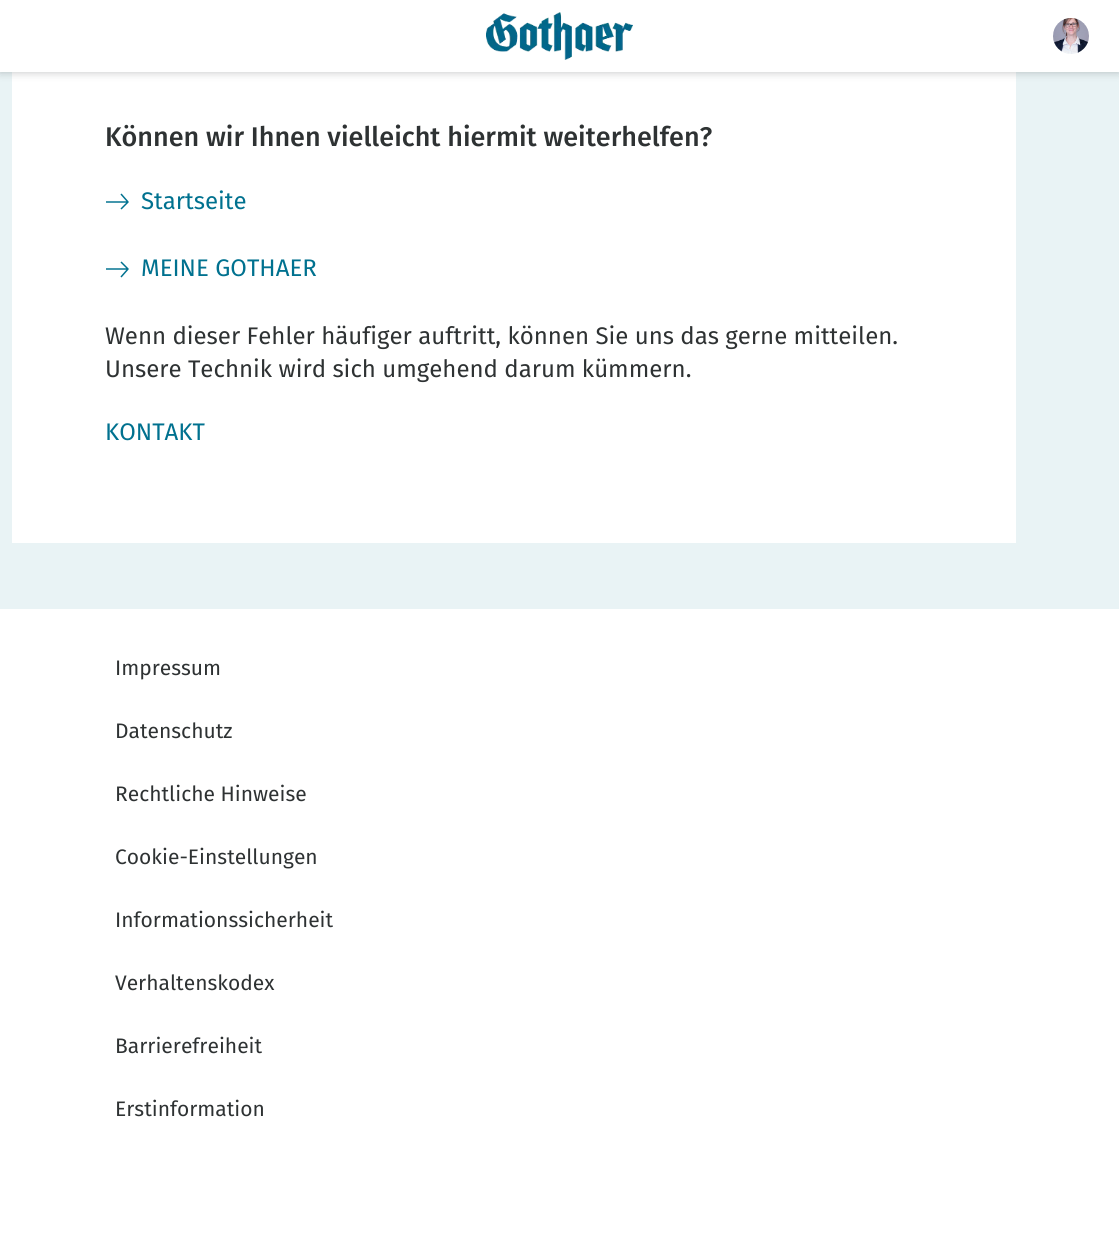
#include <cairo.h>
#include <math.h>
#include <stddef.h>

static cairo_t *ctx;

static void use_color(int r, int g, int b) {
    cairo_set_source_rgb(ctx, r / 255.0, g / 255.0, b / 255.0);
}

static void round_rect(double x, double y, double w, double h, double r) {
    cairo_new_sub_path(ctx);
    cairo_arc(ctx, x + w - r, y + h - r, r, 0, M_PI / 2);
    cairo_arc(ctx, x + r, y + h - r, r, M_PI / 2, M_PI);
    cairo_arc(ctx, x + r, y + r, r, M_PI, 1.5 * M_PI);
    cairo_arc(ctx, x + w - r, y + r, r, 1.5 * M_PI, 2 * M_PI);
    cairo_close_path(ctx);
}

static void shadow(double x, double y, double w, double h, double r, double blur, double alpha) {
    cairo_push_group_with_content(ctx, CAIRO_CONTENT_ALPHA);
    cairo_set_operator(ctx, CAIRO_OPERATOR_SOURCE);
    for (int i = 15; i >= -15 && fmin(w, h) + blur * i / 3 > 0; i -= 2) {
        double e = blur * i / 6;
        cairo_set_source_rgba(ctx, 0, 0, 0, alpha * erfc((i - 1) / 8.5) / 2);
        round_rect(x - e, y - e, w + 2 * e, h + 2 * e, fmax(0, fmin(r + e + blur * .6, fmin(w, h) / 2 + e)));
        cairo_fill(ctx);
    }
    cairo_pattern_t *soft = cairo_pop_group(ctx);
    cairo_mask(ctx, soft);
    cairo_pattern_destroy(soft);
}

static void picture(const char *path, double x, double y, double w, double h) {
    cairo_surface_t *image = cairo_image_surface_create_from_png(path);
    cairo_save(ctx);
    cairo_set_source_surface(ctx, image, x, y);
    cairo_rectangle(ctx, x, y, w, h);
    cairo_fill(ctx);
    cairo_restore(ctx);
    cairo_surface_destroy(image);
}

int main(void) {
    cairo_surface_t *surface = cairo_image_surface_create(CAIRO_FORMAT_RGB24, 1119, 1259);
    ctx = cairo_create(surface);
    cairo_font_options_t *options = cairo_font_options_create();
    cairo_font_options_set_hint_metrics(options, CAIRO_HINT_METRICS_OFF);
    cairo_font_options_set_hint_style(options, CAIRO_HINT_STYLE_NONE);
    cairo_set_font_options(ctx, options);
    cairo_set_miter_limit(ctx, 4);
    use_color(233, 243, 245);
    cairo_paint(ctx);
    use_color(255, 255, 255);
    cairo_rectangle(ctx, 12, 72, 1004, 471);
    cairo_fill(ctx);
    use_color(46, 50, 51);
    shadow(0, 0, 1119, 72, 0, 4.5, 0.3);
    use_color(255, 255, 255);
    cairo_rectangle(ctx, 0, 0, 1119, 72);
    cairo_fill(ctx);
    picture("img1.png", 486, 12, 147, 48);
    picture("img2.png", 1053, 18, 36, 36);
    cairo_select_font_face(ctx, "Fira Sans Medium", CAIRO_FONT_SLANT_NORMAL, CAIRO_FONT_WEIGHT_NORMAL);
    cairo_set_font_size(ctx, 27);
    use_color(46, 50, 51);
    cairo_move_to(ctx, 105, 146);
    cairo_show_text(ctx, "Können wir Ihnen vielleicht hiermit weiterhelfen?");
    cairo_new_path(ctx);
    cairo_move_to(ctx, 106, 202);
    cairo_line_to(ctx, 128, 202);
    cairo_move_to(ctx, 121, 194);
    cairo_line_to(ctx, 128, 202);
    cairo_line_to(ctx, 121, 209);
    use_color(0, 113, 143);
    cairo_set_line_width(ctx, 1.5);
    cairo_set_line_join(ctx, CAIRO_LINE_JOIN_ROUND);
    cairo_stroke(ctx);
    cairo_select_font_face(ctx, "Fira Sans", CAIRO_FONT_SLANT_NORMAL, CAIRO_FONT_WEIGHT_NORMAL);
    cairo_set_font_size(ctx, 24);
    cairo_move_to(ctx, 141, 209);
    cairo_show_text(ctx, "Startseite");
    cairo_new_path(ctx);
    cairo_move_to(ctx, 106, 269);
    cairo_line_to(ctx, 128, 269);
    cairo_move_to(ctx, 121, 262);
    cairo_line_to(ctx, 128, 269);
    cairo_line_to(ctx, 121, 277);
    cairo_stroke(ctx);
    cairo_move_to(ctx, 141, 276);
    cairo_show_text(ctx, "MEINE GOTHAER");
    use_color(46, 50, 51);
    cairo_move_to(ctx, 105, 344);
    cairo_show_text(ctx, "Wenn dieser Fehler häufiger auftritt, können Sie uns das gerne mitteilen.");
    cairo_move_to(ctx, 105, 377);
    cairo_show_text(ctx, "Unsere Technik wird sich umgehend darum kümmern.");
    use_color(0, 113, 143);
    cairo_move_to(ctx, 105, 440);
    cairo_show_text(ctx, "KONTAKT");
    use_color(255, 255, 255);
    cairo_rectangle(ctx, 0, 609, 1119, 650);
    cairo_fill(ctx);
    cairo_set_font_size(ctx, 21);
    use_color(46, 50, 51);
    cairo_move_to(ctx, 115, 675);
    cairo_show_text(ctx, "Impressum");
    cairo_move_to(ctx, 115, 738);
    cairo_show_text(ctx, "Datenschutz");
    cairo_move_to(ctx, 115, 801);
    cairo_show_text(ctx, "Rechtliche Hinweise");
    cairo_move_to(ctx, 115, 864);
    cairo_show_text(ctx, "Cookie-Einstellungen");
    cairo_move_to(ctx, 115, 927);
    cairo_show_text(ctx, "Informationssicherheit");
    cairo_move_to(ctx, 115, 990);
    cairo_show_text(ctx, "Verhaltenskodex");
    cairo_move_to(ctx, 115, 1053);
    cairo_show_text(ctx, "Barrierefreiheit");
    cairo_move_to(ctx, 115, 1116);
    cairo_show_text(ctx, "Erstinformation");
    cairo_surface_write_to_png(surface, "result.png");
    cairo_font_options_destroy(options);
    cairo_destroy(ctx);
    cairo_surface_destroy(surface);
    return 0;
}
